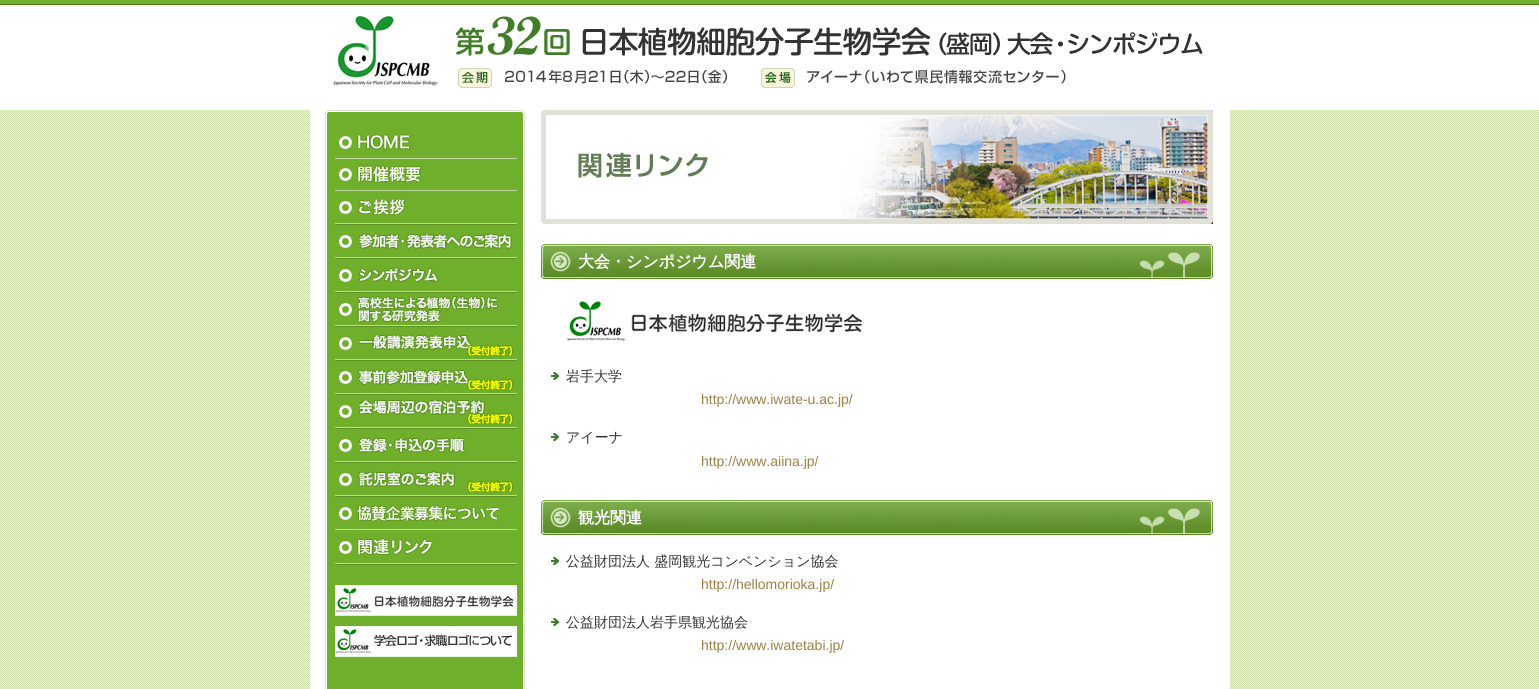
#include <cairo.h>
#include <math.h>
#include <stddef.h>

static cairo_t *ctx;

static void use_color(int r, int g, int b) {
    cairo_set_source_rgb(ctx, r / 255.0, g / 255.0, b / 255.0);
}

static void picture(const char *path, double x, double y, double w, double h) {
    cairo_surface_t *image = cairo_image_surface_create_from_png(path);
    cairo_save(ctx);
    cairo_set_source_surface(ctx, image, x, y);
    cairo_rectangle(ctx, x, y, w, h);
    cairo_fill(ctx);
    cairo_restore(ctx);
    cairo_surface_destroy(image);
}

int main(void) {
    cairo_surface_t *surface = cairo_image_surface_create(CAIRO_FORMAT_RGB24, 1539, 689);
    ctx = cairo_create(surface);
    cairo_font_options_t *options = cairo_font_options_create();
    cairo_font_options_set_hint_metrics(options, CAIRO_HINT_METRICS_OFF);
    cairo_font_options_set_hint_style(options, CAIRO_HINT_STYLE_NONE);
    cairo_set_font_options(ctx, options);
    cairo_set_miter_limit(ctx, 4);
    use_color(255, 255, 255);
    cairo_paint(ctx);
    picture("img1.png", 0, 110, 1539, 579);
    picture("img2.png", 0, 0, 1539, 110);
    picture("img3.png", 333, 15, 870, 73);
    use_color(255, 255, 255);
    cairo_rectangle(ctx, 310, 110, 920, 579);
    cairo_fill(ctx);
    picture("img4.png", 325, 110, 200, 579);
    picture("img5.png", 335, 125, 182, 34);
    picture("img6.png", 335, 159, 182, 32);
    picture("img7.png", 335, 191, 182, 34);
    picture("img8.png", 335, 225, 182, 34);
    picture("img9.png", 335, 259, 182, 34);
    picture("img10.png", 335, 293, 182, 34);
    picture("img11.png", 335, 327, 182, 34);
    picture("img12.png", 335, 361, 182, 34);
    picture("img13.png", 335, 395, 182, 34);
    picture("img14.png", 335, 429, 182, 34);
    picture("img15.png", 335, 463, 182, 34);
    picture("img16.png", 335, 497, 182, 33);
    picture("img17.png", 335, 530, 182, 35);
    cairo_rectangle(ctx, 516, 585, 1, 31);
    cairo_fill(ctx);
    picture("img18.png", 335, 585, 181, 31);
    cairo_rectangle(ctx, 516, 626, 1, 31);
    cairo_fill(ctx);
    picture("img19.png", 335, 626, 181, 31);
    picture("img20.png", 541, 110, 672, 114);
    picture("img21.png", 541, 244, 672, 35);
    cairo_select_font_face(ctx, "WenQuanYi Zen Hei", CAIRO_FONT_SLANT_NORMAL, CAIRO_FONT_WEIGHT_BOLD);
    cairo_set_font_size(ctx, 16);
    cairo_move_to(ctx, 578, 267);
    cairo_show_text(ctx, "大会・シンポジウム関連");
    picture("img22.png", 567, 301, 295, 40);
    picture("img23.png", 551, 372, 8, 8);
    cairo_select_font_face(ctx, "WenQuanYi Zen Hei Medium", CAIRO_FONT_SLANT_NORMAL, CAIRO_FONT_WEIGHT_NORMAL);
    cairo_set_font_size(ctx, 14);
    use_color(51, 51, 51);
    cairo_move_to(ctx, 566, 381);
    cairo_show_text(ctx, "岩手大学");
    cairo_select_font_face(ctx, "Liberation Sans", CAIRO_FONT_SLANT_NORMAL, CAIRO_FONT_WEIGHT_NORMAL);
    use_color(157, 129, 67);
    cairo_move_to(ctx, 701, 404);
    cairo_show_text(ctx, "http://www.iwate-u.ac.jp/");
    picture("img23.png", 551, 433, 8, 8);
    cairo_select_font_face(ctx, "WenQuanYi Zen Hei Medium", CAIRO_FONT_SLANT_NORMAL, CAIRO_FONT_WEIGHT_NORMAL);
    use_color(51, 51, 51);
    cairo_move_to(ctx, 566, 442);
    cairo_show_text(ctx, "アイーナ");
    cairo_select_font_face(ctx, "Liberation Sans", CAIRO_FONT_SLANT_NORMAL, CAIRO_FONT_WEIGHT_NORMAL);
    use_color(157, 129, 67);
    cairo_move_to(ctx, 701, 466);
    cairo_show_text(ctx, "http://www.aiina.jp/");
    picture("img21.png", 541, 500, 672, 35);
    cairo_select_font_face(ctx, "WenQuanYi Zen Hei", CAIRO_FONT_SLANT_NORMAL, CAIRO_FONT_WEIGHT_BOLD);
    cairo_set_font_size(ctx, 16);
    use_color(255, 255, 255);
    cairo_move_to(ctx, 578, 523);
    cairo_show_text(ctx, "観光関連");
    picture("img23.png", 551, 557, 8, 8);
    cairo_select_font_face(ctx, "WenQuanYi Zen Hei Medium", CAIRO_FONT_SLANT_NORMAL, CAIRO_FONT_WEIGHT_NORMAL);
    cairo_set_font_size(ctx, 14);
    use_color(51, 51, 51);
    cairo_move_to(ctx, 566, 566);
    cairo_show_text(ctx, "公益財団法人 盛岡観光コンベンション協会");
    cairo_select_font_face(ctx, "Liberation Sans", CAIRO_FONT_SLANT_NORMAL, CAIRO_FONT_WEIGHT_NORMAL);
    use_color(157, 129, 67);
    cairo_move_to(ctx, 701, 589);
    cairo_show_text(ctx, "http://hellomorioka.jp/");
    picture("img23.png", 551, 618, 8, 8);
    cairo_select_font_face(ctx, "WenQuanYi Zen Hei Medium", CAIRO_FONT_SLANT_NORMAL, CAIRO_FONT_WEIGHT_NORMAL);
    use_color(51, 51, 51);
    cairo_move_to(ctx, 566, 627);
    cairo_show_text(ctx, "公益財団法人岩手県観光協会");
    cairo_select_font_face(ctx, "Liberation Sans", CAIRO_FONT_SLANT_NORMAL, CAIRO_FONT_WEIGHT_NORMAL);
    use_color(157, 129, 67);
    cairo_move_to(ctx, 701, 650);
    cairo_show_text(ctx, "http://www.iwatetabi.jp/");
    cairo_surface_write_to_png(surface, "result.png");
    cairo_font_options_destroy(options);
    cairo_destroy(ctx);
    cairo_surface_destroy(surface);
    return 0;
}
